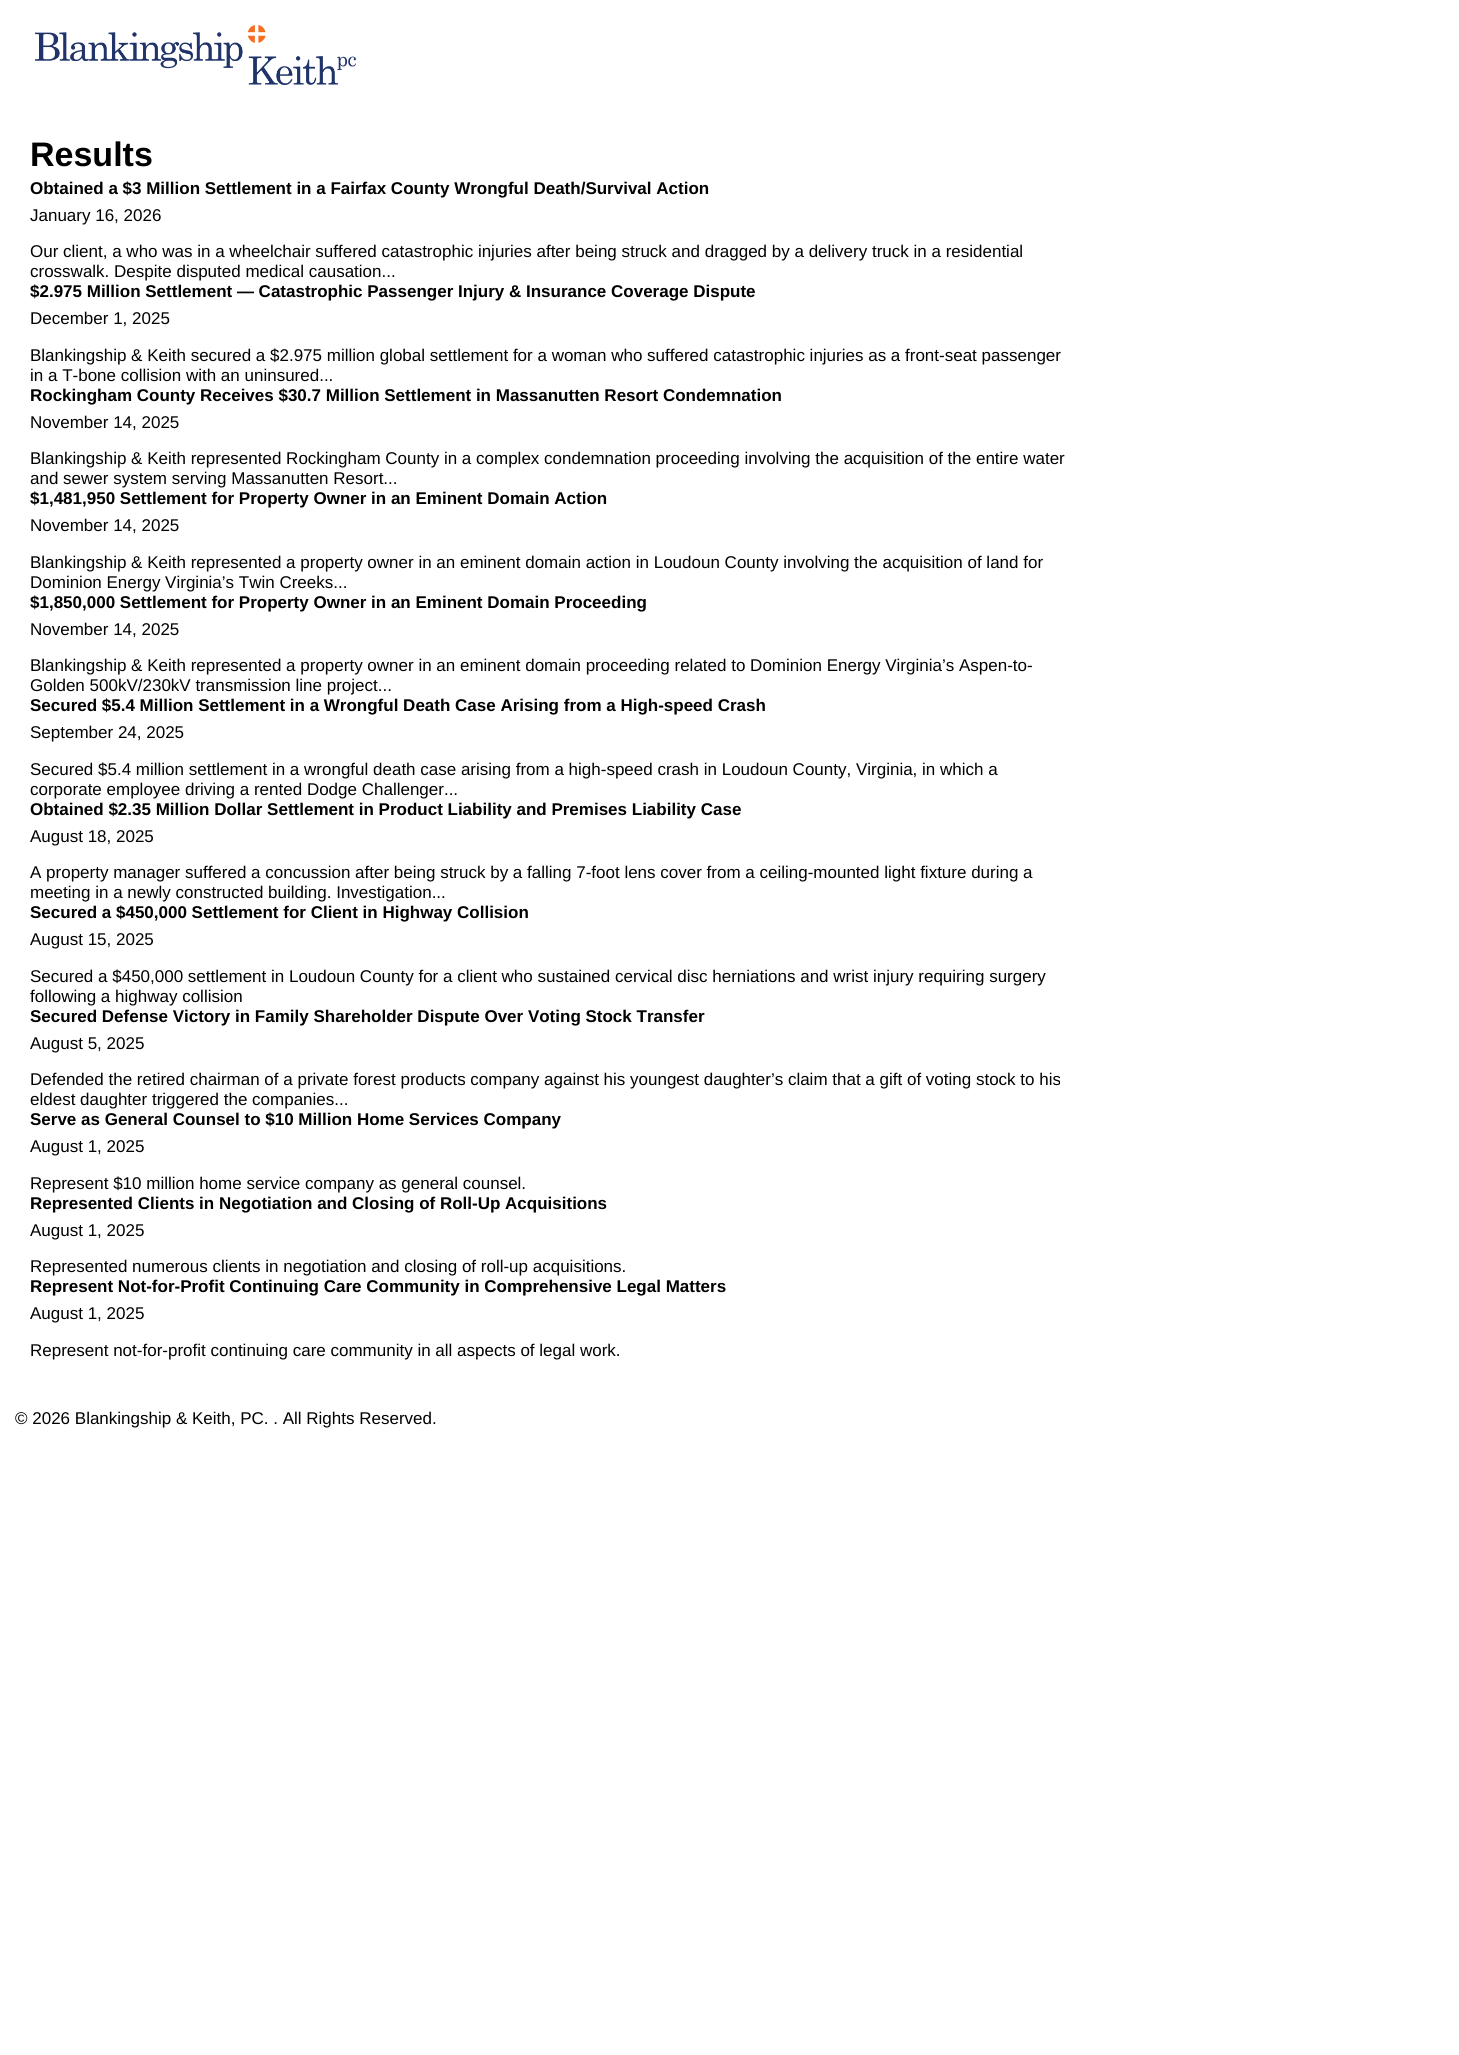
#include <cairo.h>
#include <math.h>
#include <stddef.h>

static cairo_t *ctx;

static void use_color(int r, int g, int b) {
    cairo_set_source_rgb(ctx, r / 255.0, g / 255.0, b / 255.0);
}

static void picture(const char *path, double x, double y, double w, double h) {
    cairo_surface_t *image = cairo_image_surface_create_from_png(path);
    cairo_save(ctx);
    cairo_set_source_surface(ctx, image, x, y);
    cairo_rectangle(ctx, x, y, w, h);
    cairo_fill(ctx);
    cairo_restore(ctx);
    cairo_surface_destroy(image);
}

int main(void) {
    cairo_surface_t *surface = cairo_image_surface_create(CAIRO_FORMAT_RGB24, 1459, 2055);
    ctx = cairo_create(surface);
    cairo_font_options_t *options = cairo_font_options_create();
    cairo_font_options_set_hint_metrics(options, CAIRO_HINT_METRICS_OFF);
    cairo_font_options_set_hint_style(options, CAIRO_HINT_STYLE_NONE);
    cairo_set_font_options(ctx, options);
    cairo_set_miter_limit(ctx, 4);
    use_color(255, 255, 255);
    cairo_paint(ctx);
    picture("img1.png", 35, 25, 321, 60);
    cairo_select_font_face(ctx, "Liberation Sans", CAIRO_FONT_SLANT_NORMAL, CAIRO_FONT_WEIGHT_BOLD);
    cairo_set_font_size(ctx, 34);
    use_color(0, 0, 0);
    cairo_move_to(ctx, 30, 166);
    cairo_show_text(ctx, "Results");
    cairo_set_font_size(ctx, 17);
    cairo_move_to(ctx, 30, 194);
    cairo_show_text(ctx, "Obtained a $3 Million Settlement in a Fairfax County Wrongful Death/Survival Action");
    cairo_select_font_face(ctx, "Liberation Sans", CAIRO_FONT_SLANT_NORMAL, CAIRO_FONT_WEIGHT_NORMAL);
    cairo_move_to(ctx, 30, 221);
    cairo_show_text(ctx, "January 16, 2026");
    cairo_move_to(ctx, 30, 257);
    cairo_show_text(ctx, "Our client, a who was in a wheelchair suffered catastrophic injuries after being struck and dragged by a delivery truck in a residential");
    cairo_move_to(ctx, 30, 277);
    cairo_show_text(ctx, "crosswalk. Despite disputed medical causation...");
    cairo_select_font_face(ctx, "Liberation Sans", CAIRO_FONT_SLANT_NORMAL, CAIRO_FONT_WEIGHT_BOLD);
    cairo_move_to(ctx, 30, 297);
    cairo_show_text(ctx, "$2.975 Million Settlement — Catastrophic Passenger Injury & Insurance Coverage Dispute");
    cairo_select_font_face(ctx, "Liberation Sans", CAIRO_FONT_SLANT_NORMAL, CAIRO_FONT_WEIGHT_NORMAL);
    cairo_move_to(ctx, 30, 324);
    cairo_show_text(ctx, "December 1, 2025");
    cairo_move_to(ctx, 30, 361);
    cairo_show_text(ctx, "Blankingship & Keith secured a $2.975 million global settlement for a woman who suffered catastrophic injuries as a front-seat passenger");
    cairo_move_to(ctx, 30, 381);
    cairo_show_text(ctx, "in a T-bone collision with an uninsured...");
    cairo_select_font_face(ctx, "Liberation Sans", CAIRO_FONT_SLANT_NORMAL, CAIRO_FONT_WEIGHT_BOLD);
    cairo_move_to(ctx, 30, 401);
    cairo_show_text(ctx, "Rockingham County Receives $30.7 Million Settlement in Massanutten Resort Condemnation");
    cairo_select_font_face(ctx, "Liberation Sans", CAIRO_FONT_SLANT_NORMAL, CAIRO_FONT_WEIGHT_NORMAL);
    cairo_move_to(ctx, 30, 428);
    cairo_show_text(ctx, "November 14, 2025");
    cairo_move_to(ctx, 30, 464);
    cairo_show_text(ctx, "Blankingship & Keith represented Rockingham County in a complex condemnation proceeding involving the acquisition of the entire water");
    cairo_move_to(ctx, 30, 484);
    cairo_show_text(ctx, "and sewer system serving Massanutten Resort...");
    cairo_select_font_face(ctx, "Liberation Sans", CAIRO_FONT_SLANT_NORMAL, CAIRO_FONT_WEIGHT_BOLD);
    cairo_move_to(ctx, 30, 504);
    cairo_show_text(ctx, "$1,481,950 Settlement for Property Owner in an Eminent Domain Action");
    cairo_select_font_face(ctx, "Liberation Sans", CAIRO_FONT_SLANT_NORMAL, CAIRO_FONT_WEIGHT_NORMAL);
    cairo_move_to(ctx, 30, 531);
    cairo_show_text(ctx, "November 14, 2025");
    cairo_move_to(ctx, 30, 568);
    cairo_show_text(ctx, "Blankingship & Keith represented a property owner in an eminent domain action in Loudoun County involving the acquisition of land for");
    cairo_move_to(ctx, 30, 588);
    cairo_show_text(ctx, "Dominion Energy Virginia’s Twin Creeks...");
    cairo_select_font_face(ctx, "Liberation Sans", CAIRO_FONT_SLANT_NORMAL, CAIRO_FONT_WEIGHT_BOLD);
    cairo_move_to(ctx, 30, 608);
    cairo_show_text(ctx, "$1,850,000 Settlement for Property Owner in an Eminent Domain Proceeding");
    cairo_select_font_face(ctx, "Liberation Sans", CAIRO_FONT_SLANT_NORMAL, CAIRO_FONT_WEIGHT_NORMAL);
    cairo_move_to(ctx, 30, 635);
    cairo_show_text(ctx, "November 14, 2025");
    cairo_move_to(ctx, 30, 671);
    cairo_show_text(ctx, "Blankingship & Keith represented a property owner in an eminent domain proceeding related to Dominion Energy Virginia’s Aspen-to-");
    cairo_move_to(ctx, 30, 691);
    cairo_show_text(ctx, "Golden 500kV/230kV transmission line project...");
    cairo_select_font_face(ctx, "Liberation Sans", CAIRO_FONT_SLANT_NORMAL, CAIRO_FONT_WEIGHT_BOLD);
    cairo_move_to(ctx, 30, 711);
    cairo_show_text(ctx, "Secured $5.4 Million Settlement in a Wrongful Death Case Arising from a High-speed Crash");
    cairo_select_font_face(ctx, "Liberation Sans", CAIRO_FONT_SLANT_NORMAL, CAIRO_FONT_WEIGHT_NORMAL);
    cairo_move_to(ctx, 30, 738);
    cairo_show_text(ctx, "September 24, 2025");
    cairo_move_to(ctx, 30, 775);
    cairo_show_text(ctx, "Secured $5.4 million settlement in a wrongful death case arising from a high-speed crash in Loudoun County, Virginia, in which a");
    cairo_move_to(ctx, 30, 795);
    cairo_show_text(ctx, "corporate employee driving a rented Dodge Challenger...");
    cairo_select_font_face(ctx, "Liberation Sans", CAIRO_FONT_SLANT_NORMAL, CAIRO_FONT_WEIGHT_BOLD);
    cairo_move_to(ctx, 30, 815);
    cairo_show_text(ctx, "Obtained $2.35 Million Dollar Settlement in Product Liability and Premises Liability Case");
    cairo_select_font_face(ctx, "Liberation Sans", CAIRO_FONT_SLANT_NORMAL, CAIRO_FONT_WEIGHT_NORMAL);
    cairo_move_to(ctx, 30, 842);
    cairo_show_text(ctx, "August 18, 2025");
    cairo_move_to(ctx, 30, 878);
    cairo_show_text(ctx, "A property manager suffered a concussion after being struck by a falling 7-foot lens cover from a ceiling-mounted light fixture during a");
    cairo_move_to(ctx, 30, 898);
    cairo_show_text(ctx, "meeting in a newly constructed building. Investigation...");
    cairo_select_font_face(ctx, "Liberation Sans", CAIRO_FONT_SLANT_NORMAL, CAIRO_FONT_WEIGHT_BOLD);
    cairo_move_to(ctx, 30, 918);
    cairo_show_text(ctx, "Secured a $450,000 Settlement for Client in Highway Collision");
    cairo_select_font_face(ctx, "Liberation Sans", CAIRO_FONT_SLANT_NORMAL, CAIRO_FONT_WEIGHT_NORMAL);
    cairo_move_to(ctx, 30, 945);
    cairo_show_text(ctx, "August 15, 2025");
    cairo_move_to(ctx, 30, 982);
    cairo_show_text(ctx, "Secured a $450,000 settlement in Loudoun County for a client who sustained cervical disc herniations and wrist injury requiring surgery");
    cairo_move_to(ctx, 30, 1002);
    cairo_show_text(ctx, "following a highway collision");
    cairo_select_font_face(ctx, "Liberation Sans", CAIRO_FONT_SLANT_NORMAL, CAIRO_FONT_WEIGHT_BOLD);
    cairo_move_to(ctx, 30, 1022);
    cairo_show_text(ctx, "Secured Defense Victory in Family Shareholder Dispute Over Voting Stock Transfer");
    cairo_select_font_face(ctx, "Liberation Sans", CAIRO_FONT_SLANT_NORMAL, CAIRO_FONT_WEIGHT_NORMAL);
    cairo_move_to(ctx, 30, 1049);
    cairo_show_text(ctx, "August 5, 2025");
    cairo_move_to(ctx, 30, 1085);
    cairo_show_text(ctx, "Defended the retired chairman of a private forest products company against his youngest daughter’s claim that a gift of voting stock to his");
    cairo_move_to(ctx, 30, 1105);
    cairo_show_text(ctx, "eldest daughter triggered the companies...");
    cairo_select_font_face(ctx, "Liberation Sans", CAIRO_FONT_SLANT_NORMAL, CAIRO_FONT_WEIGHT_BOLD);
    cairo_move_to(ctx, 30, 1125);
    cairo_show_text(ctx, "Serve as General Counsel to $10 Million Home Services Company");
    cairo_select_font_face(ctx, "Liberation Sans", CAIRO_FONT_SLANT_NORMAL, CAIRO_FONT_WEIGHT_NORMAL);
    cairo_move_to(ctx, 30, 1152);
    cairo_show_text(ctx, "August 1, 2025");
    cairo_move_to(ctx, 30, 1189);
    cairo_show_text(ctx, "Represent $10 million home service company as general counsel.");
    cairo_select_font_face(ctx, "Liberation Sans", CAIRO_FONT_SLANT_NORMAL, CAIRO_FONT_WEIGHT_BOLD);
    cairo_move_to(ctx, 30, 1209);
    cairo_show_text(ctx, "Represented Clients in Negotiation and Closing of Roll-Up Acquisitions");
    cairo_select_font_face(ctx, "Liberation Sans", CAIRO_FONT_SLANT_NORMAL, CAIRO_FONT_WEIGHT_NORMAL);
    cairo_move_to(ctx, 30, 1236);
    cairo_show_text(ctx, "August 1, 2025");
    cairo_move_to(ctx, 30, 1272);
    cairo_show_text(ctx, "Represented numerous clients in negotiation and closing of roll-up acquisitions.");
    cairo_select_font_face(ctx, "Liberation Sans", CAIRO_FONT_SLANT_NORMAL, CAIRO_FONT_WEIGHT_BOLD);
    cairo_move_to(ctx, 30, 1292);
    cairo_show_text(ctx, "Represent Not-for-Profit Continuing Care Community in Comprehensive Legal Matters");
    cairo_select_font_face(ctx, "Liberation Sans", CAIRO_FONT_SLANT_NORMAL, CAIRO_FONT_WEIGHT_NORMAL);
    cairo_move_to(ctx, 30, 1319);
    cairo_show_text(ctx, "August 1, 2025");
    cairo_move_to(ctx, 30, 1356);
    cairo_show_text(ctx, "Represent not-for-profit continuing care community in all aspects of legal work.");
    cairo_move_to(ctx, 15, 1424);
    cairo_show_text(ctx, "© 2026 Blankingship & Keith, PC. . All Rights Reserved.");
    cairo_surface_write_to_png(surface, "result.png");
    cairo_font_options_destroy(options);
    cairo_destroy(ctx);
    cairo_surface_destroy(surface);
    return 0;
}
